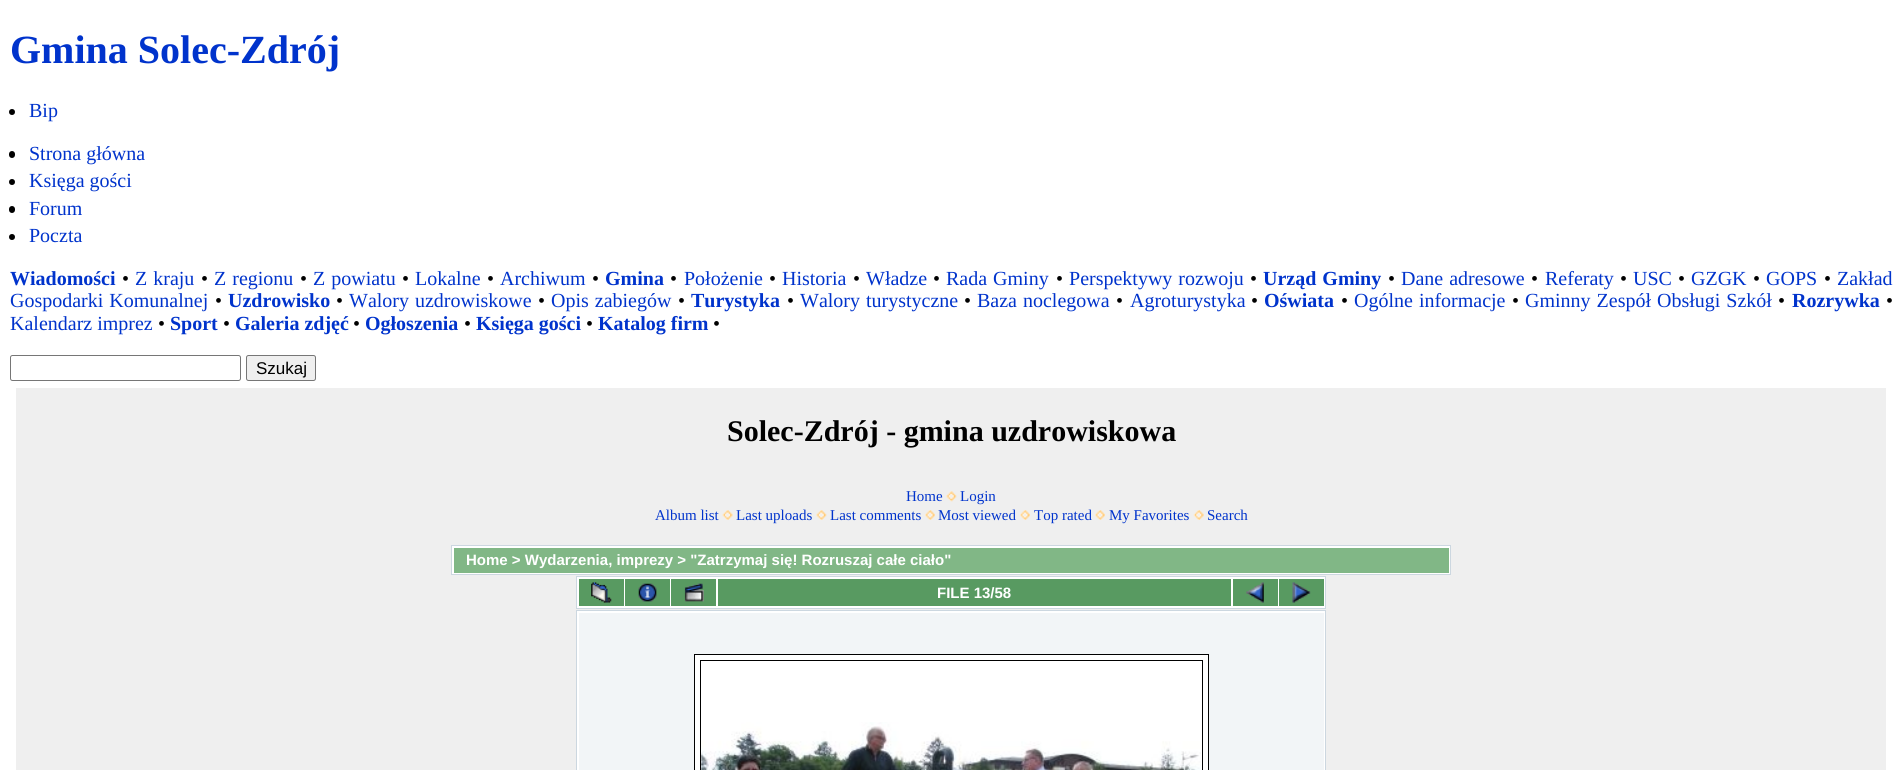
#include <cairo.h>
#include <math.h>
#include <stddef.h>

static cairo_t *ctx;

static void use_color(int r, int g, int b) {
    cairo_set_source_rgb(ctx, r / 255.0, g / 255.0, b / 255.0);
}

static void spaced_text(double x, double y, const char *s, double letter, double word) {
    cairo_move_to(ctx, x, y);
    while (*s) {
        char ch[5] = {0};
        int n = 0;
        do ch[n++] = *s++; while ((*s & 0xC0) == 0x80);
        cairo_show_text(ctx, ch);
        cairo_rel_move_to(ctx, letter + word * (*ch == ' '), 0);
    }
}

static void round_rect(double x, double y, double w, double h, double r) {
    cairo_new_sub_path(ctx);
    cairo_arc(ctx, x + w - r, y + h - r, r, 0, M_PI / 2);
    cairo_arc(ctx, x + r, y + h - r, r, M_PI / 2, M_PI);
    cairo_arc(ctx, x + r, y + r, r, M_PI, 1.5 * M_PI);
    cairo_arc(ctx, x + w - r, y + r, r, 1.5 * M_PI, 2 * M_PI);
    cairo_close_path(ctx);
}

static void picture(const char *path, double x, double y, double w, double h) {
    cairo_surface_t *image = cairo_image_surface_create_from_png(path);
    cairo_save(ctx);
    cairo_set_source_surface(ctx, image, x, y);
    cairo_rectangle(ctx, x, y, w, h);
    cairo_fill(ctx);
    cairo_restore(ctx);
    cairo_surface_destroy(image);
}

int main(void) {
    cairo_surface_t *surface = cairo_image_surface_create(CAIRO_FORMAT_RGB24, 1902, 770);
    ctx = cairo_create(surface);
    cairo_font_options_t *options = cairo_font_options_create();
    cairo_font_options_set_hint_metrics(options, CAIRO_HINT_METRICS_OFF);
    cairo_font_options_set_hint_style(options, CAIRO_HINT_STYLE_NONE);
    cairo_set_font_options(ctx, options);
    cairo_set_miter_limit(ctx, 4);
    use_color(255, 255, 255);
    cairo_paint(ctx);
    cairo_select_font_face(ctx, "Liberation Serif", CAIRO_FONT_SLANT_NORMAL, CAIRO_FONT_WEIGHT_BOLD);
    cairo_set_font_size(ctx, 40);
    use_color(0, 51, 204);
    cairo_move_to(ctx, 10, 63);
    cairo_show_text(ctx, "Gmina Solec-Zdrój");
    use_color(0, 0, 0);
    cairo_new_path(ctx);
    cairo_arc(ctx, 12, 112, 3, 0, 2 * M_PI);
    cairo_fill(ctx);
    cairo_select_font_face(ctx, "Liberation Serif", CAIRO_FONT_SLANT_NORMAL, CAIRO_FONT_WEIGHT_NORMAL);
    cairo_set_font_size(ctx, 20);
    use_color(0, 51, 204);
    cairo_move_to(ctx, 29, 117);
    cairo_show_text(ctx, "Bip");
    use_color(0, 0, 0);
    round_rect(9, 151, 6, 7, 3);
    cairo_fill(ctx);
    use_color(0, 51, 204);
    cairo_move_to(ctx, 29, 160);
    cairo_show_text(ctx, "Strona główna");
    use_color(0, 0, 0);
    cairo_new_path(ctx);
    cairo_arc(ctx, 12, 182, 3, 0, 2 * M_PI);
    cairo_fill(ctx);
    use_color(0, 51, 204);
    cairo_move_to(ctx, 29, 187);
    cairo_show_text(ctx, "Księga gości");
    use_color(0, 0, 0);
    round_rect(9, 206, 6, 7, 3);
    cairo_fill(ctx);
    use_color(0, 51, 204);
    cairo_move_to(ctx, 29, 215);
    cairo_show_text(ctx, "Forum");
    use_color(0, 0, 0);
    cairo_new_path(ctx);
    cairo_arc(ctx, 12, 237, 3, 0, 2 * M_PI);
    cairo_fill(ctx);
    use_color(0, 51, 204);
    cairo_move_to(ctx, 29, 242);
    cairo_show_text(ctx, "Poczta");
    cairo_select_font_face(ctx, "Liberation Serif", CAIRO_FONT_SLANT_NORMAL, CAIRO_FONT_WEIGHT_BOLD);
    cairo_move_to(ctx, 10, 285);
    cairo_show_text(ctx, "Wiadomości");
    cairo_select_font_face(ctx, "Liberation Serif", CAIRO_FONT_SLANT_NORMAL, CAIRO_FONT_WEIGHT_NORMAL);
    use_color(0, 0, 0);
    cairo_move_to(ctx, 122, 285);
    cairo_show_text(ctx, "•");
    use_color(0, 51, 204);
    spaced_text(135, 285, "Z kraju", 0, 1);
    use_color(0, 0, 0);
    cairo_move_to(ctx, 201, 285);
    cairo_show_text(ctx, "•");
    use_color(0, 51, 204);
    spaced_text(214, 285, "Z regionu", 0, 1);
    use_color(0, 0, 0);
    cairo_move_to(ctx, 300, 285);
    cairo_show_text(ctx, "•");
    use_color(0, 51, 204);
    spaced_text(313, 285, "Z powiatu", 0, 1);
    use_color(0, 0, 0);
    cairo_move_to(ctx, 402, 285);
    cairo_show_text(ctx, "•");
    use_color(0, 51, 204);
    cairo_move_to(ctx, 415, 285);
    cairo_show_text(ctx, "Lokalne");
    use_color(0, 0, 0);
    cairo_move_to(ctx, 487, 285);
    cairo_show_text(ctx, "•");
    use_color(0, 51, 204);
    cairo_move_to(ctx, 500, 285);
    cairo_show_text(ctx, "Archiwum");
    use_color(0, 0, 0);
    cairo_move_to(ctx, 592, 285);
    cairo_show_text(ctx, "•");
    cairo_select_font_face(ctx, "Liberation Serif", CAIRO_FONT_SLANT_NORMAL, CAIRO_FONT_WEIGHT_BOLD);
    use_color(0, 51, 204);
    cairo_move_to(ctx, 605, 285);
    cairo_show_text(ctx, "Gmina");
    cairo_select_font_face(ctx, "Liberation Serif", CAIRO_FONT_SLANT_NORMAL, CAIRO_FONT_WEIGHT_NORMAL);
    use_color(0, 0, 0);
    cairo_move_to(ctx, 670, 285);
    cairo_show_text(ctx, "•");
    use_color(0, 51, 204);
    cairo_move_to(ctx, 684, 285);
    cairo_show_text(ctx, "Położenie");
    use_color(0, 0, 0);
    cairo_move_to(ctx, 769, 285);
    cairo_show_text(ctx, "•");
    use_color(0, 51, 204);
    cairo_move_to(ctx, 782, 285);
    cairo_show_text(ctx, "Historia");
    use_color(0, 0, 0);
    cairo_move_to(ctx, 853, 285);
    cairo_show_text(ctx, "•");
    use_color(0, 51, 204);
    cairo_move_to(ctx, 866, 285);
    cairo_show_text(ctx, "Władze");
    use_color(0, 0, 0);
    cairo_move_to(ctx, 933, 285);
    cairo_show_text(ctx, "•");
    use_color(0, 51, 204);
    spaced_text(946, 285, "Rada Gminy", 0, 1);
    use_color(0, 0, 0);
    cairo_move_to(ctx, 1056, 285);
    cairo_show_text(ctx, "•");
    use_color(0, 51, 204);
    spaced_text(1069, 285, "Perspektywy rozwoju", 0, 1);
    use_color(0, 0, 0);
    cairo_move_to(ctx, 1250, 285);
    cairo_show_text(ctx, "•");
    cairo_select_font_face(ctx, "Liberation Serif", CAIRO_FONT_SLANT_NORMAL, CAIRO_FONT_WEIGHT_BOLD);
    use_color(0, 51, 204);
    spaced_text(1263, 285, "Urząd Gminy", 0, 1);
    cairo_select_font_face(ctx, "Liberation Serif", CAIRO_FONT_SLANT_NORMAL, CAIRO_FONT_WEIGHT_NORMAL);
    use_color(0, 0, 0);
    cairo_move_to(ctx, 1388, 285);
    cairo_show_text(ctx, "•");
    use_color(0, 51, 204);
    spaced_text(1401, 285, "Dane adresowe", 0, 1);
    use_color(0, 0, 0);
    cairo_move_to(ctx, 1531, 285);
    cairo_show_text(ctx, "•");
    use_color(0, 51, 204);
    cairo_move_to(ctx, 1545, 285);
    cairo_show_text(ctx, "Referaty");
    use_color(0, 0, 0);
    cairo_move_to(ctx, 1620, 285);
    cairo_show_text(ctx, "•");
    use_color(0, 51, 204);
    cairo_move_to(ctx, 1633, 285);
    cairo_show_text(ctx, "USC");
    use_color(0, 0, 0);
    cairo_move_to(ctx, 1678, 285);
    cairo_show_text(ctx, "•");
    use_color(0, 51, 204);
    cairo_move_to(ctx, 1691, 285);
    cairo_show_text(ctx, "GZGK");
    use_color(0, 0, 0);
    cairo_move_to(ctx, 1753, 285);
    cairo_show_text(ctx, "•");
    use_color(0, 51, 204);
    cairo_move_to(ctx, 1766, 285);
    cairo_show_text(ctx, "GOPS");
    use_color(0, 0, 0);
    cairo_move_to(ctx, 1824, 285);
    cairo_show_text(ctx, "•");
    use_color(0, 51, 204);
    cairo_move_to(ctx, 1837, 285);
    cairo_show_text(ctx, "Zakład");
    spaced_text(10, 307, "Gospodarki Komunalnej", 0, 1);
    use_color(0, 0, 0);
    cairo_move_to(ctx, 215, 307);
    cairo_show_text(ctx, "•");
    cairo_select_font_face(ctx, "Liberation Serif", CAIRO_FONT_SLANT_NORMAL, CAIRO_FONT_WEIGHT_BOLD);
    use_color(0, 51, 204);
    cairo_move_to(ctx, 228, 307);
    cairo_show_text(ctx, "Uzdrowisko");
    cairo_select_font_face(ctx, "Liberation Serif", CAIRO_FONT_SLANT_NORMAL, CAIRO_FONT_WEIGHT_NORMAL);
    use_color(0, 0, 0);
    cairo_move_to(ctx, 336, 307);
    cairo_show_text(ctx, "•");
    use_color(0, 51, 204);
    spaced_text(349, 307, "Walory uzdrowiskowe", 0, 1);
    use_color(0, 0, 0);
    cairo_move_to(ctx, 538, 307);
    cairo_show_text(ctx, "•");
    use_color(0, 51, 204);
    spaced_text(551, 307, "Opis zabiegów", 0, 1);
    use_color(0, 0, 0);
    cairo_move_to(ctx, 678, 307);
    cairo_show_text(ctx, "•");
    cairo_select_font_face(ctx, "Liberation Serif", CAIRO_FONT_SLANT_NORMAL, CAIRO_FONT_WEIGHT_BOLD);
    use_color(0, 51, 204);
    cairo_move_to(ctx, 691, 307);
    cairo_show_text(ctx, "Turystyka");
    cairo_select_font_face(ctx, "Liberation Serif", CAIRO_FONT_SLANT_NORMAL, CAIRO_FONT_WEIGHT_NORMAL);
    use_color(0, 0, 0);
    cairo_move_to(ctx, 787, 307);
    cairo_show_text(ctx, "•");
    use_color(0, 51, 204);
    spaced_text(800, 307, "Walory turystyczne", 0, 1);
    use_color(0, 0, 0);
    cairo_move_to(ctx, 964, 307);
    cairo_show_text(ctx, "•");
    use_color(0, 51, 204);
    spaced_text(977, 307, "Baza noclegowa", 0, 1);
    use_color(0, 0, 0);
    cairo_move_to(ctx, 1116, 307);
    cairo_show_text(ctx, "•");
    use_color(0, 51, 204);
    cairo_move_to(ctx, 1130, 307);
    cairo_show_text(ctx, "Agroturystyka");
    use_color(0, 0, 0);
    cairo_move_to(ctx, 1251, 307);
    cairo_show_text(ctx, "•");
    cairo_select_font_face(ctx, "Liberation Serif", CAIRO_FONT_SLANT_NORMAL, CAIRO_FONT_WEIGHT_BOLD);
    use_color(0, 51, 204);
    cairo_move_to(ctx, 1264, 307);
    cairo_show_text(ctx, "Oświata");
    cairo_select_font_face(ctx, "Liberation Serif", CAIRO_FONT_SLANT_NORMAL, CAIRO_FONT_WEIGHT_NORMAL);
    use_color(0, 0, 0);
    cairo_move_to(ctx, 1341, 307);
    cairo_show_text(ctx, "•");
    use_color(0, 51, 204);
    spaced_text(1354, 307, "Ogólne informacje", 0, 1);
    use_color(0, 0, 0);
    cairo_move_to(ctx, 1512, 307);
    cairo_show_text(ctx, "•");
    use_color(0, 51, 204);
    spaced_text(1525, 307, "Gminny Zespół Obsługi Szkół", 0, 1);
    use_color(0, 0, 0);
    cairo_move_to(ctx, 1778, 307);
    cairo_show_text(ctx, "•");
    cairo_select_font_face(ctx, "Liberation Serif", CAIRO_FONT_SLANT_NORMAL, CAIRO_FONT_WEIGHT_BOLD);
    use_color(0, 51, 204);
    cairo_move_to(ctx, 1792, 307);
    cairo_show_text(ctx, "Rozrywka");
    cairo_select_font_face(ctx, "Liberation Serif", CAIRO_FONT_SLANT_NORMAL, CAIRO_FONT_WEIGHT_NORMAL);
    use_color(0, 0, 0);
    cairo_move_to(ctx, 1886, 307);
    cairo_show_text(ctx, "•");
    use_color(0, 51, 204);
    cairo_move_to(ctx, 10, 330);
    cairo_show_text(ctx, "Kalendarz imprez");
    use_color(0, 0, 0);
    cairo_move_to(ctx, 158, 330);
    cairo_show_text(ctx, "•");
    cairo_select_font_face(ctx, "Liberation Serif", CAIRO_FONT_SLANT_NORMAL, CAIRO_FONT_WEIGHT_BOLD);
    use_color(0, 51, 204);
    cairo_move_to(ctx, 170, 330);
    cairo_show_text(ctx, "Sport");
    cairo_select_font_face(ctx, "Liberation Serif", CAIRO_FONT_SLANT_NORMAL, CAIRO_FONT_WEIGHT_NORMAL);
    use_color(0, 0, 0);
    cairo_move_to(ctx, 223, 330);
    cairo_show_text(ctx, "•");
    cairo_select_font_face(ctx, "Liberation Serif", CAIRO_FONT_SLANT_NORMAL, CAIRO_FONT_WEIGHT_BOLD);
    use_color(0, 51, 204);
    cairo_move_to(ctx, 235, 330);
    cairo_show_text(ctx, "Galeria zdjęć");
    cairo_select_font_face(ctx, "Liberation Serif", CAIRO_FONT_SLANT_NORMAL, CAIRO_FONT_WEIGHT_NORMAL);
    use_color(0, 0, 0);
    cairo_move_to(ctx, 353, 330);
    cairo_show_text(ctx, "•");
    cairo_select_font_face(ctx, "Liberation Serif", CAIRO_FONT_SLANT_NORMAL, CAIRO_FONT_WEIGHT_BOLD);
    use_color(0, 51, 204);
    cairo_move_to(ctx, 365, 330);
    cairo_show_text(ctx, "Ogłoszenia");
    cairo_select_font_face(ctx, "Liberation Serif", CAIRO_FONT_SLANT_NORMAL, CAIRO_FONT_WEIGHT_NORMAL);
    use_color(0, 0, 0);
    cairo_move_to(ctx, 464, 330);
    cairo_show_text(ctx, "•");
    cairo_select_font_face(ctx, "Liberation Serif", CAIRO_FONT_SLANT_NORMAL, CAIRO_FONT_WEIGHT_BOLD);
    use_color(0, 51, 204);
    cairo_move_to(ctx, 476, 330);
    cairo_show_text(ctx, "Księga gości");
    cairo_select_font_face(ctx, "Liberation Serif", CAIRO_FONT_SLANT_NORMAL, CAIRO_FONT_WEIGHT_NORMAL);
    use_color(0, 0, 0);
    cairo_move_to(ctx, 586, 330);
    cairo_show_text(ctx, "•");
    cairo_select_font_face(ctx, "Liberation Serif", CAIRO_FONT_SLANT_NORMAL, CAIRO_FONT_WEIGHT_BOLD);
    use_color(0, 51, 204);
    cairo_move_to(ctx, 598, 330);
    cairo_show_text(ctx, "Katalog firm");
    cairo_select_font_face(ctx, "Liberation Serif", CAIRO_FONT_SLANT_NORMAL, CAIRO_FONT_WEIGHT_NORMAL);
    use_color(0, 0, 0);
    cairo_move_to(ctx, 713, 330);
    cairo_show_text(ctx, "•");
    round_rect(10.5, 355.5, 230, 25, 2);
    use_color(118, 118, 118);
    cairo_set_line_width(ctx, 1);
    cairo_stroke(ctx);
    use_color(239, 239, 239);
    round_rect(246.5, 355.5, 69, 25, 2);
    cairo_fill_preserve(ctx);
    use_color(118, 118, 118);
    cairo_stroke(ctx);
    cairo_select_font_face(ctx, "Liberation Sans", CAIRO_FONT_SLANT_NORMAL, CAIRO_FONT_WEIGHT_NORMAL);
    cairo_set_font_size(ctx, 17);
    use_color(0, 0, 0);
    cairo_move_to(ctx, 256, 374);
    cairo_show_text(ctx, "Szukaj");
    use_color(239, 239, 239);
    cairo_rectangle(ctx, 16, 388, 1870, 382);
    cairo_fill(ctx);
    cairo_select_font_face(ctx, "Liberation Serif", CAIRO_FONT_SLANT_NORMAL, CAIRO_FONT_WEIGHT_BOLD);
    cairo_set_font_size(ctx, 30);
    use_color(0, 0, 0);
    cairo_move_to(ctx, 727, 441);
    cairo_show_text(ctx, "Solec-Zdrój - gmina uzdrowiskowa");
    cairo_select_font_face(ctx, "Liberation Serif", CAIRO_FONT_SLANT_NORMAL, CAIRO_FONT_WEIGHT_NORMAL);
    cairo_set_font_size(ctx, 15);
    use_color(0, 51, 204);
    cairo_move_to(ctx, 906, 501);
    cairo_show_text(ctx, "Home");
    picture("img1.png", 946, 491, 11, 11);
    cairo_move_to(ctx, 960, 501);
    cairo_show_text(ctx, "Login");
    cairo_move_to(ctx, 655, 520);
    cairo_show_text(ctx, "Album list");
    picture("img2.png", 722, 510, 11, 10);
    cairo_move_to(ctx, 736, 520);
    cairo_show_text(ctx, "Last uploads");
    picture("img3.png", 816, 510, 11, 10);
    cairo_move_to(ctx, 830, 520);
    cairo_show_text(ctx, "Last comments");
    picture("img4.png", 925, 510, 10, 10);
    cairo_move_to(ctx, 938, 520);
    cairo_show_text(ctx, "Most viewed");
    picture("img5.png", 1020, 510, 10, 10);
    cairo_move_to(ctx, 1034, 520);
    cairo_show_text(ctx, "Top rated");
    picture("img5.png", 1095, 510, 10, 10);
    cairo_move_to(ctx, 1109, 520);
    cairo_show_text(ctx, "My Favorites");
    picture("img6.png", 1193, 510, 11, 10);
    cairo_move_to(ctx, 1207, 520);
    cairo_show_text(ctx, "Search");
    use_color(255, 255, 255);
    cairo_rectangle(ctx, 451.5, 545.5, 999, 29);
    cairo_fill_preserve(ctx);
    use_color(204, 215, 224);
    cairo_stroke(ctx);
    use_color(129, 183, 134);
    cairo_rectangle(ctx, 454, 548, 995, 25);
    cairo_fill(ctx);
    cairo_select_font_face(ctx, "Liberation Sans", CAIRO_FONT_SLANT_NORMAL, CAIRO_FONT_WEIGHT_BOLD);
    use_color(255, 255, 255);
    cairo_move_to(ctx, 466, 565);
    cairo_show_text(ctx, "Home > Wydarzenia, imprezy > \"Zatrzymaj się! Rozruszaj całe ciało\"");
    cairo_rectangle(ctx, 576.5, 576.5, 749, 32);
    cairo_fill_preserve(ctx);
    use_color(204, 215, 224);
    cairo_stroke(ctx);
    use_color(88, 154, 97);
    cairo_rectangle(ctx, 579, 579, 45, 27);
    cairo_fill(ctx);
    picture("img7.png", 591, 582, 21, 21);
    cairo_rectangle(ctx, 625, 579, 45, 27);
    cairo_fill(ctx);
    picture("img8.png", 638, 583, 19, 19);
    cairo_rectangle(ctx, 671, 579, 45, 27);
    cairo_fill(ctx);
    picture("img9.png", 684, 583, 20, 19);
    cairo_rectangle(ctx, 718, 579, 513, 27);
    cairo_fill(ctx);
    use_color(255, 255, 255);
    cairo_move_to(ctx, 937, 598);
    cairo_show_text(ctx, "FILE 13/58");
    use_color(88, 154, 97);
    cairo_rectangle(ctx, 1233, 579, 45, 27);
    cairo_fill(ctx);
    picture("img10.png", 1246, 582, 18, 21);
    cairo_rectangle(ctx, 1279, 579, 45, 27);
    cairo_fill(ctx);
    picture("img11.png", 1292, 582, 19, 21);
    use_color(255, 255, 255);
    cairo_rectangle(ctx, 576.5, 610.5, 749, 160);
    cairo_fill_preserve(ctx);
    use_color(204, 215, 224);
    cairo_stroke(ctx);
    use_color(242, 245, 247);
    cairo_rectangle(ctx, 579, 613, 745, 157);
    cairo_fill(ctx);
    use_color(255, 255, 255);
    cairo_rectangle(ctx, 694.5, 654.5, 514, 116);
    cairo_fill_preserve(ctx);
    use_color(0, 0, 0);
    cairo_stroke(ctx);
    cairo_rectangle(ctx, 700.5, 660.5, 502, 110);
    cairo_stroke(ctx);
    picture("img12.png", 701, 722, 500, 48);
    cairo_surface_write_to_png(surface, "result.png");
    cairo_font_options_destroy(options);
    cairo_destroy(ctx);
    cairo_surface_destroy(surface);
    return 0;
}
